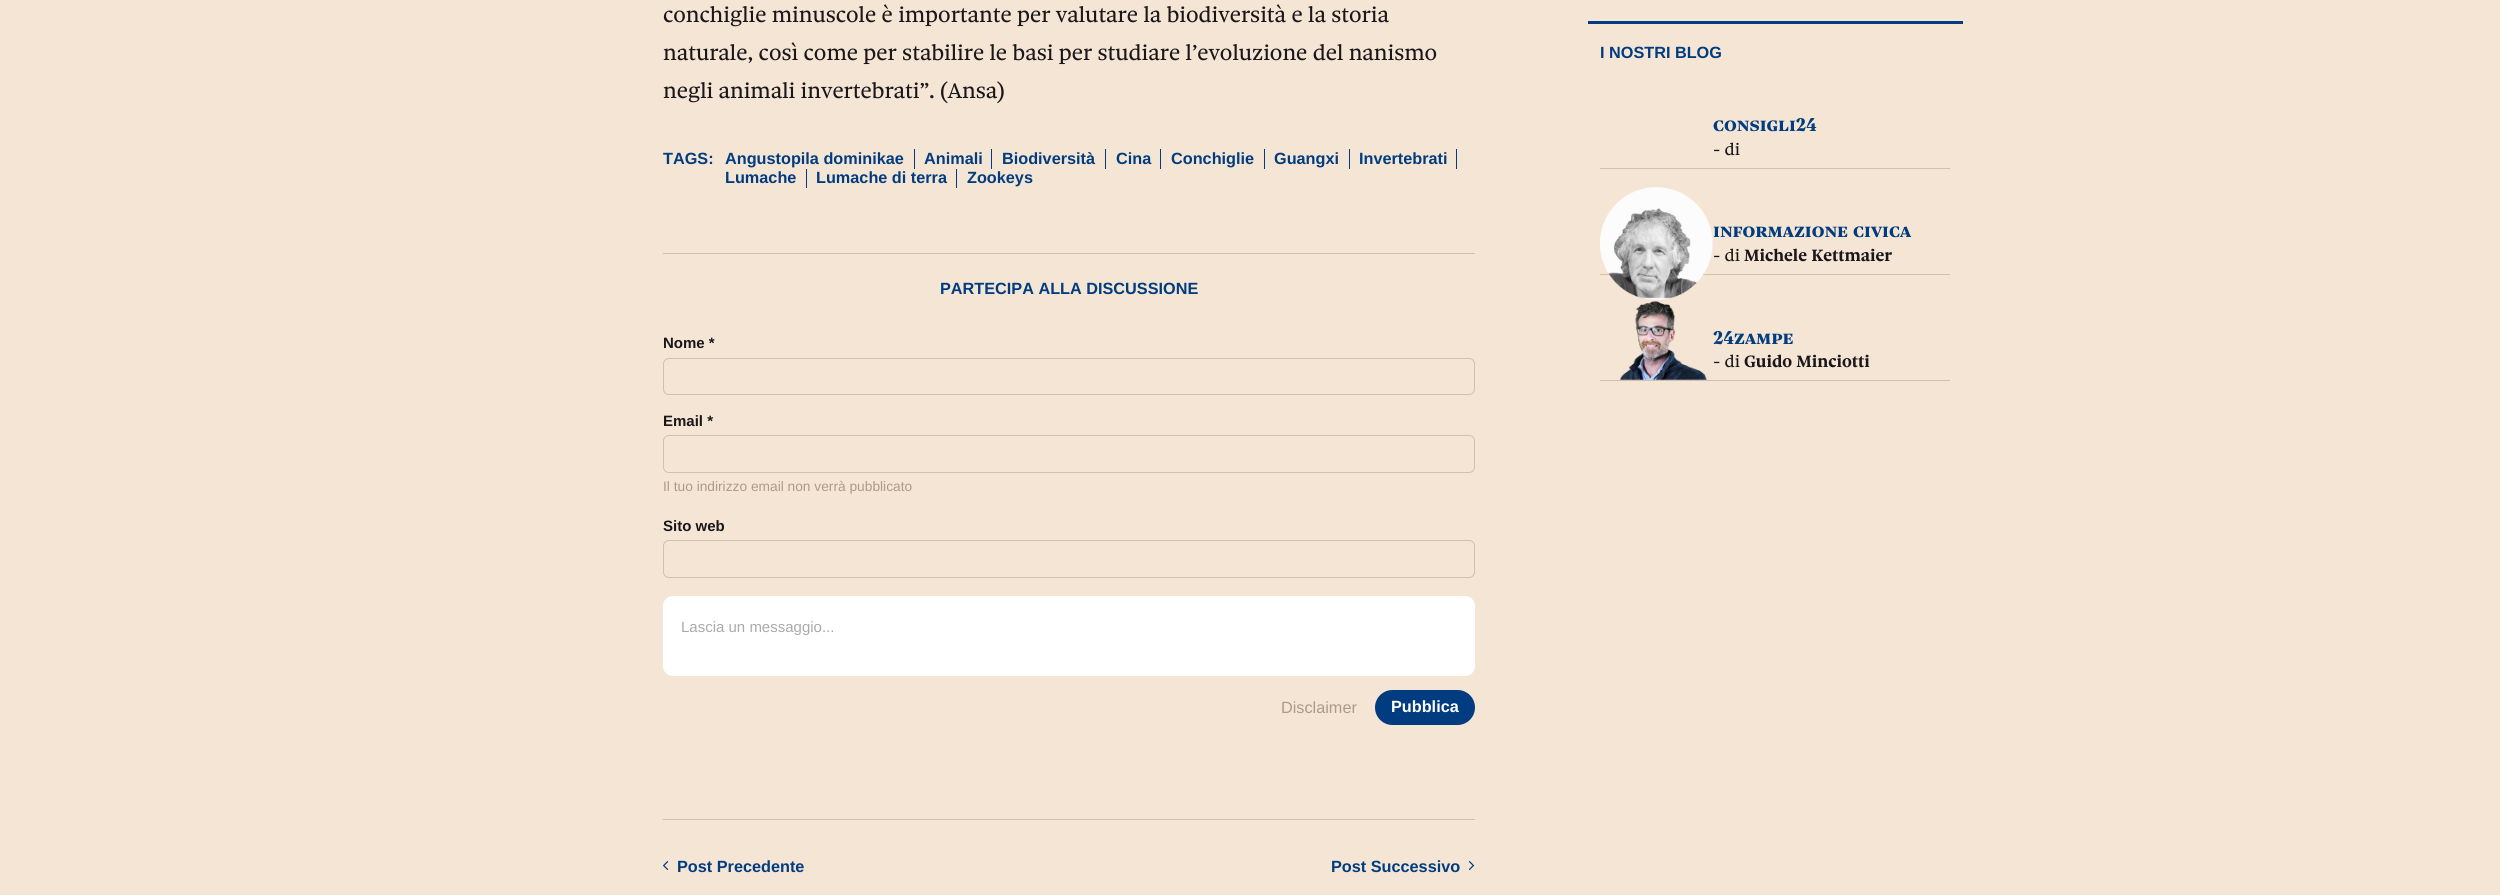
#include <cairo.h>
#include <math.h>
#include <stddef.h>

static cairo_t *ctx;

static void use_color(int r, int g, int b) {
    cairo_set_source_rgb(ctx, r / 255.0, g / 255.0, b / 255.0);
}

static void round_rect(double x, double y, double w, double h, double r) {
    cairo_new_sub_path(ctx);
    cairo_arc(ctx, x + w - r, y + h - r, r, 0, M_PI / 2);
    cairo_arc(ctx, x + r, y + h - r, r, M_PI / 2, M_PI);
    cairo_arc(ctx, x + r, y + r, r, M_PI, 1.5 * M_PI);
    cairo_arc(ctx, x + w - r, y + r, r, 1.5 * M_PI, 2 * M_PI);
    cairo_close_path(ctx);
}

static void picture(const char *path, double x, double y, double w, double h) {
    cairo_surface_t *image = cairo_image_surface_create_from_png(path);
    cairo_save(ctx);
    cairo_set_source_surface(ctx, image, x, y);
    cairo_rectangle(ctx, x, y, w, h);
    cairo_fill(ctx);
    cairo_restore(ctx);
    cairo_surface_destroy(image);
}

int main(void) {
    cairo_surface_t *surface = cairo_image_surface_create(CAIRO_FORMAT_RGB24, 2500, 895);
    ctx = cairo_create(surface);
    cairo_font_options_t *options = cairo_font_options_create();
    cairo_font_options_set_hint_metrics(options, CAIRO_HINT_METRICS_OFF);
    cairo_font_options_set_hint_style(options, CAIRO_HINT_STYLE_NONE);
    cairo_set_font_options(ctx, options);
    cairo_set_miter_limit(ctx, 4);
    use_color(245, 229, 213);
    cairo_paint(ctx);
    cairo_select_font_face(ctx, "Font", CAIRO_FONT_SLANT_NORMAL, CAIRO_FONT_WEIGHT_NORMAL);
    cairo_set_font_size(ctx, 22.5);
    use_color(26, 23, 27);
    cairo_move_to(ctx, 663, 22);
    cairo_show_text(ctx, "conchiglie minuscole è importante per valutare la biodiversità e la storia");
    cairo_move_to(ctx, 663, 60);
    cairo_show_text(ctx, "naturale, così come per stabilire le basi per studiare l’evoluzione del nanismo");
    cairo_move_to(ctx, 663, 98);
    cairo_show_text(ctx, "negli animali invertebrati”. (Ansa)");
    cairo_select_font_face(ctx, "Liberation Sans", CAIRO_FONT_SLANT_NORMAL, CAIRO_FONT_WEIGHT_BOLD);
    cairo_set_font_size(ctx, 16.25);
    use_color(0, 60, 127);
    cairo_move_to(ctx, 663, 164);
    cairo_show_text(ctx, "TAGS:");
    cairo_rectangle(ctx, 914, 149, 1, 20);
    cairo_fill(ctx);
    cairo_move_to(ctx, 725, 164);
    cairo_show_text(ctx, "Angustopila dominikae");
    cairo_rectangle(ctx, 991, 149, 1, 20);
    cairo_fill(ctx);
    cairo_move_to(ctx, 924, 164);
    cairo_show_text(ctx, "Animali");
    cairo_rectangle(ctx, 1105, 149, 1, 20);
    cairo_fill(ctx);
    cairo_move_to(ctx, 1002, 164);
    cairo_show_text(ctx, "Biodiversità");
    cairo_rectangle(ctx, 1160, 149, 1, 20);
    cairo_fill(ctx);
    cairo_move_to(ctx, 1116, 164);
    cairo_show_text(ctx, "Cina");
    cairo_rectangle(ctx, 1264, 149, 1, 20);
    cairo_fill(ctx);
    cairo_move_to(ctx, 1171, 164);
    cairo_show_text(ctx, "Conchiglie");
    cairo_rectangle(ctx, 1349, 149, 1, 20);
    cairo_fill(ctx);
    cairo_move_to(ctx, 1274, 164);
    cairo_show_text(ctx, "Guangxi");
    cairo_rectangle(ctx, 1456, 149, 1, 20);
    cairo_fill(ctx);
    cairo_move_to(ctx, 1359, 164);
    cairo_show_text(ctx, "Invertebrati");
    cairo_rectangle(ctx, 806, 169, 1, 19);
    cairo_fill(ctx);
    cairo_move_to(ctx, 725, 183);
    cairo_show_text(ctx, "Lumache");
    cairo_rectangle(ctx, 956, 169, 1, 19);
    cairo_fill(ctx);
    cairo_move_to(ctx, 816, 183);
    cairo_show_text(ctx, "Lumache di terra");
    cairo_move_to(ctx, 967, 183);
    cairo_show_text(ctx, "Zookeys");
    use_color(209, 192, 175);
    cairo_rectangle(ctx, 663, 253, 812, 1);
    cairo_fill(ctx);
    use_color(0, 60, 127);
    cairo_move_to(ctx, 940, 294);
    cairo_show_text(ctx, "PARTECIPA ALLA DISCUSSIONE");
    cairo_set_font_size(ctx, 15);
    use_color(26, 23, 27);
    cairo_move_to(ctx, 663, 348);
    cairo_show_text(ctx, "Nome *");
    round_rect(663.5, 358.5, 811, 36, 5.5);
    use_color(209, 192, 175);
    cairo_set_line_width(ctx, 1);
    cairo_stroke(ctx);
    use_color(26, 23, 27);
    cairo_move_to(ctx, 663, 426);
    cairo_show_text(ctx, "Email *");
    round_rect(663.5, 435.5, 811, 37, 5.5);
    use_color(209, 192, 175);
    cairo_stroke(ctx);
    cairo_select_font_face(ctx, "Liberation Sans", CAIRO_FONT_SLANT_NORMAL, CAIRO_FONT_WEIGHT_NORMAL);
    cairo_set_font_size(ctx, 13.75);
    use_color(173, 154, 136);
    cairo_move_to(ctx, 663, 491);
    cairo_show_text(ctx, "Il tuo indirizzo email non verrà pubblicato");
    cairo_select_font_face(ctx, "Liberation Sans", CAIRO_FONT_SLANT_NORMAL, CAIRO_FONT_WEIGHT_BOLD);
    cairo_set_font_size(ctx, 15);
    use_color(26, 23, 27);
    cairo_move_to(ctx, 663, 531);
    cairo_show_text(ctx, "Sito web");
    round_rect(663.5, 540.5, 811, 37, 5.5);
    use_color(209, 192, 175);
    cairo_stroke(ctx);
    use_color(255, 255, 255);
    round_rect(663, 596, 812, 80, 10);
    cairo_fill(ctx);
    cairo_select_font_face(ctx, "Liberation Sans", CAIRO_FONT_SLANT_NORMAL, CAIRO_FONT_WEIGHT_NORMAL);
    use_color(170, 170, 170);
    cairo_move_to(ctx, 681, 632);
    cairo_show_text(ctx, "Lascia un messaggio...");
    cairo_set_font_size(ctx, 16.25);
    use_color(173, 154, 136);
    cairo_move_to(ctx, 1281, 713);
    cairo_show_text(ctx, "Disclaimer");
    use_color(0, 60, 127);
    round_rect(1375, 690, 100, 35, 17.5);
    cairo_fill(ctx);
    cairo_select_font_face(ctx, "Liberation Sans", CAIRO_FONT_SLANT_NORMAL, CAIRO_FONT_WEIGHT_BOLD);
    use_color(255, 255, 255);
    cairo_move_to(ctx, 1391, 712);
    cairo_show_text(ctx, "Pubblica");
    use_color(209, 192, 175);
    cairo_rectangle(ctx, 663, 819, 812, 1);
    cairo_fill(ctx);
    picture("img1.png", 663, 861, 6, 9);
    use_color(0, 60, 127);
    cairo_move_to(ctx, 677, 872);
    cairo_show_text(ctx, "Post Precedente");
    cairo_move_to(ctx, 1331, 872);
    cairo_show_text(ctx, "Post Successivo");
    picture("img2.png", 1468, 861, 7, 9);
    cairo_rectangle(ctx, 1588, 21, 375, 3);
    cairo_fill(ctx);
    cairo_move_to(ctx, 1600, 58);
    cairo_show_text(ctx, "I NOSTRI BLOG");
    use_color(209, 192, 175);
    cairo_rectangle(ctx, 1600, 168, 350, 1);
    cairo_fill(ctx);
    cairo_select_font_face(ctx, "Font", CAIRO_FONT_SLANT_NORMAL, CAIRO_FONT_WEIGHT_BOLD);
    cairo_set_font_size(ctx, 20);
    use_color(0, 60, 127);
    cairo_move_to(ctx, 1713, 131);
    cairo_show_text(ctx, "consigli24");
    cairo_select_font_face(ctx, "Font", CAIRO_FONT_SLANT_NORMAL, CAIRO_FONT_WEIGHT_NORMAL);
    cairo_set_font_size(ctx, 17.5);
    use_color(26, 23, 27);
    cairo_move_to(ctx, 1713, 155);
    cairo_show_text(ctx, "- di");
    use_color(209, 192, 175);
    cairo_rectangle(ctx, 1600, 274, 350, 1);
    cairo_fill(ctx);
    picture("img3.png", 1600, 187, 113, 113);
    cairo_select_font_face(ctx, "Font", CAIRO_FONT_SLANT_NORMAL, CAIRO_FONT_WEIGHT_BOLD);
    cairo_set_font_size(ctx, 20);
    use_color(0, 60, 127);
    cairo_move_to(ctx, 1713, 237);
    cairo_show_text(ctx, "informazione civica");
    cairo_select_font_face(ctx, "Font", CAIRO_FONT_SLANT_NORMAL, CAIRO_FONT_WEIGHT_NORMAL);
    cairo_set_font_size(ctx, 17.5);
    use_color(26, 23, 27);
    cairo_move_to(ctx, 1713, 261);
    cairo_show_text(ctx, "- di");
    cairo_select_font_face(ctx, "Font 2", CAIRO_FONT_SLANT_NORMAL, CAIRO_FONT_WEIGHT_BOLD);
    cairo_move_to(ctx, 1744, 261);
    cairo_show_text(ctx, "Michele Kettmaier");
    use_color(209, 192, 175);
    cairo_rectangle(ctx, 1600, 380, 350, 1);
    cairo_fill(ctx);
    picture("img4.png", 1620, 301, 87, 79);
    cairo_select_font_face(ctx, "Font", CAIRO_FONT_SLANT_NORMAL, CAIRO_FONT_WEIGHT_BOLD);
    cairo_set_font_size(ctx, 20);
    use_color(0, 60, 127);
    cairo_move_to(ctx, 1713, 344);
    cairo_show_text(ctx, "24zampe");
    cairo_select_font_face(ctx, "Font", CAIRO_FONT_SLANT_NORMAL, CAIRO_FONT_WEIGHT_NORMAL);
    cairo_set_font_size(ctx, 17.5);
    use_color(26, 23, 27);
    cairo_move_to(ctx, 1713, 367);
    cairo_show_text(ctx, "- di");
    cairo_select_font_face(ctx, "Font 2", CAIRO_FONT_SLANT_NORMAL, CAIRO_FONT_WEIGHT_BOLD);
    cairo_move_to(ctx, 1744, 367);
    cairo_show_text(ctx, "Guido Minciotti");
    cairo_surface_write_to_png(surface, "result.png");
    cairo_font_options_destroy(options);
    cairo_destroy(ctx);
    cairo_surface_destroy(surface);
    return 0;
}
